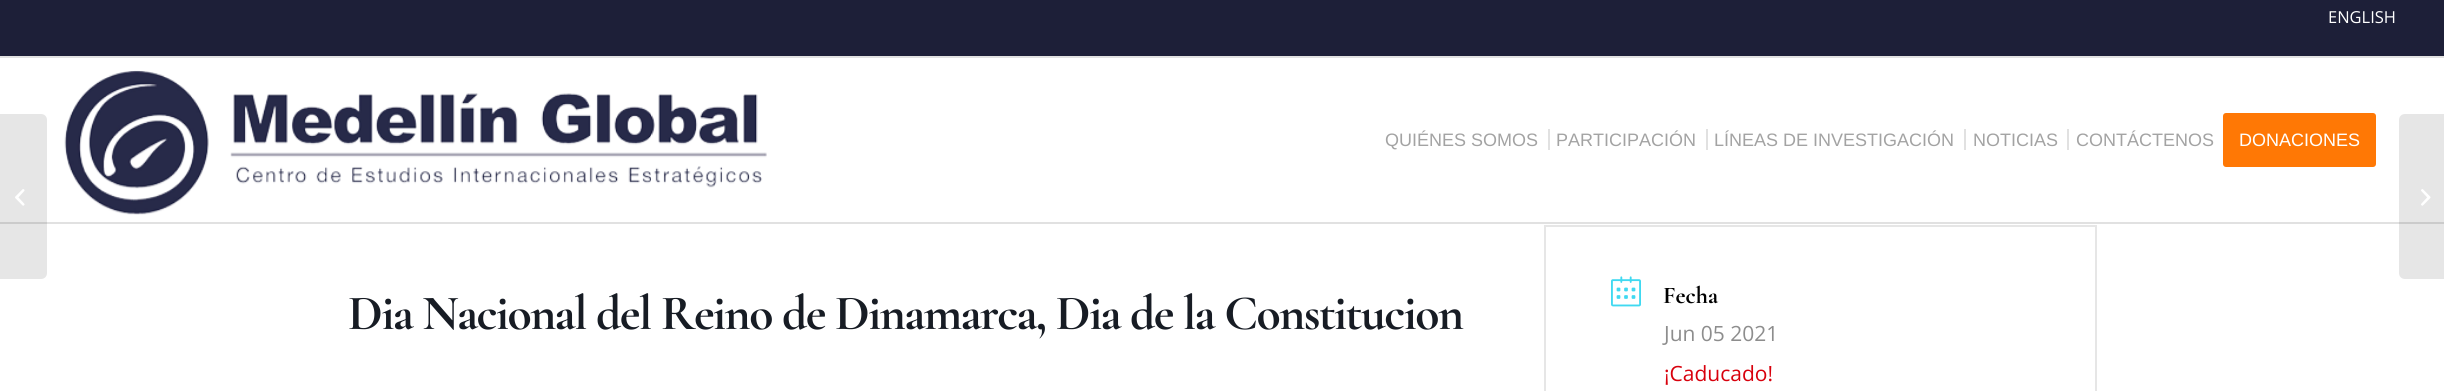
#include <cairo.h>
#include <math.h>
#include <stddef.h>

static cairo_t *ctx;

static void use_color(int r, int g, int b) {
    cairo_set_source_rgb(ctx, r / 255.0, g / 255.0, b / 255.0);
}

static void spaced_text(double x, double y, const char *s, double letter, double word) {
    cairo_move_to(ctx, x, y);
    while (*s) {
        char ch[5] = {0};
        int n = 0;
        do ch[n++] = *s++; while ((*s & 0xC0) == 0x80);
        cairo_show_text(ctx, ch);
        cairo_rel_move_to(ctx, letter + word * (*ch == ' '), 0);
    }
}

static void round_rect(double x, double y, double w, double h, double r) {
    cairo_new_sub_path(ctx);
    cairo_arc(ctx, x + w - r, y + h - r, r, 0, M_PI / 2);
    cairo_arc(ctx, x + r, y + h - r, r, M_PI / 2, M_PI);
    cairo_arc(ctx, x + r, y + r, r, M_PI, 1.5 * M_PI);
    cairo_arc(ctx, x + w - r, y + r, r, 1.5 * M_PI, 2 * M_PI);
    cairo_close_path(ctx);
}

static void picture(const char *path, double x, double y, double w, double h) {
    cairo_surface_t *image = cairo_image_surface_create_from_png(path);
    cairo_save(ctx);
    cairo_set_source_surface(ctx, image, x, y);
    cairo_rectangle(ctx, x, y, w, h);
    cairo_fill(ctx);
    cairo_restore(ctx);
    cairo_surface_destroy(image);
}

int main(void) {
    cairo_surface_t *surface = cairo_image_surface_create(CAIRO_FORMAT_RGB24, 2444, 391);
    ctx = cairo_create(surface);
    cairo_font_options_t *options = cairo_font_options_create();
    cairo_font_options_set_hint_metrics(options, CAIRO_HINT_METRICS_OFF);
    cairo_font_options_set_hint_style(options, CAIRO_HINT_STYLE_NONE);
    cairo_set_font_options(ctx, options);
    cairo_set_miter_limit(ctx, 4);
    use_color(255, 255, 255);
    cairo_paint(ctx);
    use_color(29, 31, 56);
    cairo_rectangle(ctx, 0, 0, 2444, 56);
    cairo_fill(ctx);
    use_color(225, 225, 225);
    cairo_rectangle(ctx, 0, 56, 2444, 2);
    cairo_fill(ctx);
    cairo_select_font_face(ctx, "Open Sans", CAIRO_FONT_SLANT_NORMAL, CAIRO_FONT_WEIGHT_NORMAL);
    cairo_set_font_size(ctx, 16.5);
    use_color(255, 255, 255);
    cairo_move_to(ctx, 2328, 23);
    cairo_show_text(ctx, "ENGLISH");
    use_color(225, 225, 225);
    cairo_rectangle(ctx, 0, 222, 2444, 2);
    cairo_fill(ctx);
    picture("img1.png", 64, 70, 703, 145);
    cairo_select_font_face(ctx, "Liberation Sans", CAIRO_FONT_SLANT_NORMAL, CAIRO_FONT_WEIGHT_NORMAL);
    cairo_set_font_size(ctx, 18);
    use_color(163, 163, 163);
    cairo_move_to(ctx, 1385, 146);
    cairo_show_text(ctx, "QUIÉNES SOMOS");
    cairo_move_to(ctx, 1556, 146);
    cairo_show_text(ctx, "PARTICIPACIÓN");
    use_color(225, 225, 225);
    cairo_rectangle(ctx, 1548, 129, 2, 21);
    cairo_fill(ctx);
    use_color(163, 163, 163);
    cairo_move_to(ctx, 1714, 146);
    cairo_show_text(ctx, "LÍNEAS DE INVESTIGACIÓN");
    use_color(225, 225, 225);
    cairo_rectangle(ctx, 1706, 129, 2, 21);
    cairo_fill(ctx);
    use_color(163, 163, 163);
    cairo_move_to(ctx, 1973, 146);
    cairo_show_text(ctx, "NOTICIAS");
    use_color(225, 225, 225);
    cairo_rectangle(ctx, 1964, 129, 2, 21);
    cairo_fill(ctx);
    use_color(163, 163, 163);
    cairo_move_to(ctx, 2076, 146);
    cairo_show_text(ctx, "CONTÁCTENOS");
    use_color(225, 225, 225);
    cairo_rectangle(ctx, 2067, 129, 2, 21);
    cairo_fill(ctx);
    use_color(255, 120, 5);
    round_rect(2224.5, 114.5, 150, 51, 1.5);
    cairo_fill_preserve(ctx);
    cairo_set_line_width(ctx, 3);
    cairo_stroke(ctx);
    use_color(255, 255, 255);
    cairo_move_to(ctx, 2239, 146);
    cairo_show_text(ctx, "DONACIONES");
    cairo_set_source_rgba(ctx, 0, 0, 0, 0.1);
    cairo_new_path(ctx);
    cairo_move_to(ctx, 0, 114);
    cairo_line_to(ctx, 41, 114);
    cairo_curve_to(ctx, 44.5, 114, 47, 116.5, 47, 120);
    cairo_line_to(ctx, 47, 273);
    cairo_curve_to(ctx, 47, 276.5, 44.5, 279, 41, 279);
    cairo_line_to(ctx, 0, 279);
    cairo_close_path(ctx);
    cairo_fill(ctx);
    picture("img2.png", 15, 189, 10, 17);
    cairo_new_path(ctx);
    cairo_move_to(ctx, 2405, 114);
    cairo_line_to(ctx, 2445, 114);
    cairo_line_to(ctx, 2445, 279);
    cairo_line_to(ctx, 2405, 279);
    cairo_curve_to(ctx, 2401.5, 279, 2399, 276.5, 2399, 273);
    cairo_line_to(ctx, 2399, 120);
    cairo_curve_to(ctx, 2399, 116.5, 2401.5, 114, 2405, 114);
    cairo_close_path(ctx);
    cairo_fill(ctx);
    picture("img3.png", 2421, 189, 10, 17);
    cairo_select_font_face(ctx, "Cormorant Garamond", CAIRO_FONT_SLANT_NORMAL, CAIRO_FONT_WEIGHT_BOLD);
    cairo_set_font_size(ctx, 49.5);
    use_color(23, 28, 36);
    spaced_text(348, 329, "Dia Nacional del Reino de Dinamarca, Dia de la Constitucion", -1.5, 0);
    cairo_rectangle(ctx, 1545, 226, 551, 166);
    use_color(230, 230, 230);
    cairo_set_line_width(ctx, 2);
    cairo_stroke(ctx);
    picture("img4.png", 1611, 276, 30, 31);
    cairo_set_font_size(ctx, 24);
    use_color(0, 0, 0);
    cairo_move_to(ctx, 1663, 303);
    cairo_show_text(ctx, "Fecha");
    cairo_select_font_face(ctx, "Open Sans", CAIRO_FONT_SLANT_NORMAL, CAIRO_FONT_WEIGHT_NORMAL);
    cairo_set_font_size(ctx, 21);
    use_color(141, 141, 141);
    cairo_move_to(ctx, 1664, 341);
    cairo_show_text(ctx, "Jun 05 2021");
    use_color(216, 0, 12);
    cairo_move_to(ctx, 1664, 381);
    cairo_show_text(ctx, "¡Caducado!");
    cairo_surface_write_to_png(surface, "result.png");
    cairo_font_options_destroy(options);
    cairo_destroy(ctx);
    cairo_surface_destroy(surface);
    return 0;
}
